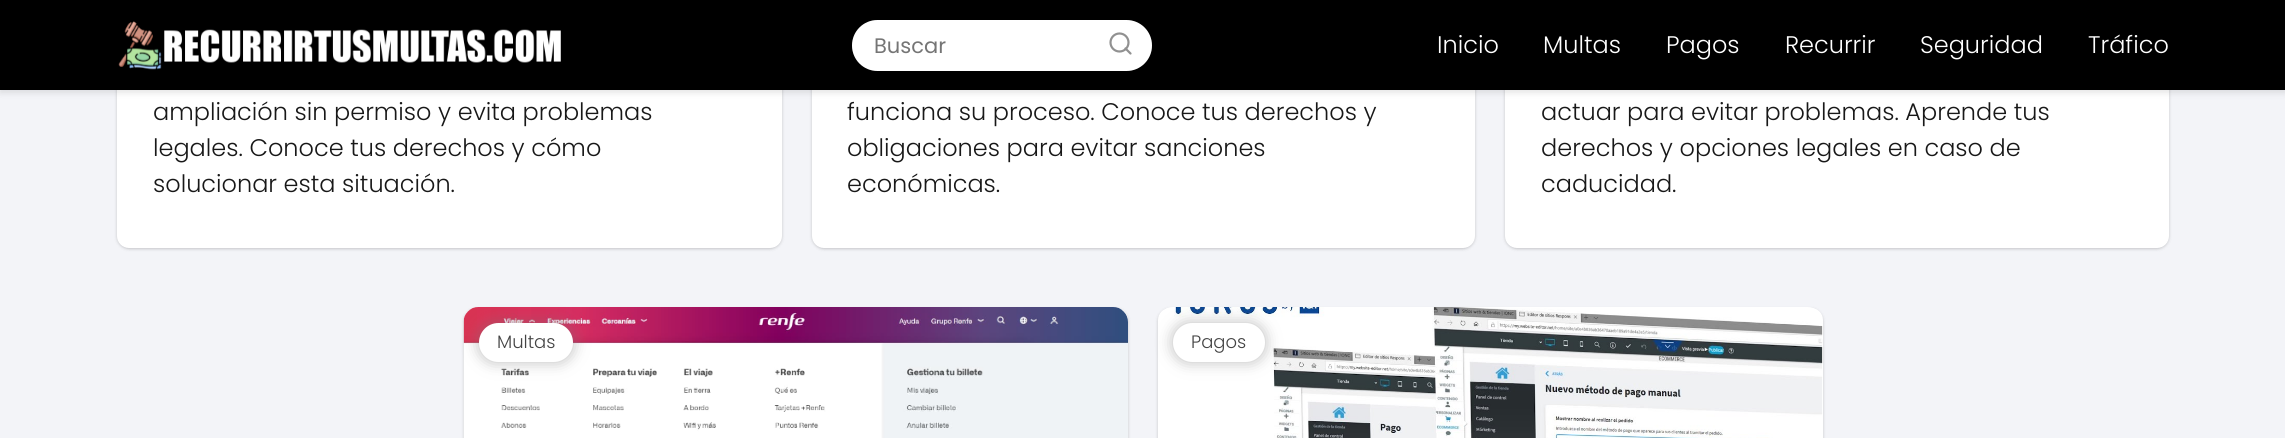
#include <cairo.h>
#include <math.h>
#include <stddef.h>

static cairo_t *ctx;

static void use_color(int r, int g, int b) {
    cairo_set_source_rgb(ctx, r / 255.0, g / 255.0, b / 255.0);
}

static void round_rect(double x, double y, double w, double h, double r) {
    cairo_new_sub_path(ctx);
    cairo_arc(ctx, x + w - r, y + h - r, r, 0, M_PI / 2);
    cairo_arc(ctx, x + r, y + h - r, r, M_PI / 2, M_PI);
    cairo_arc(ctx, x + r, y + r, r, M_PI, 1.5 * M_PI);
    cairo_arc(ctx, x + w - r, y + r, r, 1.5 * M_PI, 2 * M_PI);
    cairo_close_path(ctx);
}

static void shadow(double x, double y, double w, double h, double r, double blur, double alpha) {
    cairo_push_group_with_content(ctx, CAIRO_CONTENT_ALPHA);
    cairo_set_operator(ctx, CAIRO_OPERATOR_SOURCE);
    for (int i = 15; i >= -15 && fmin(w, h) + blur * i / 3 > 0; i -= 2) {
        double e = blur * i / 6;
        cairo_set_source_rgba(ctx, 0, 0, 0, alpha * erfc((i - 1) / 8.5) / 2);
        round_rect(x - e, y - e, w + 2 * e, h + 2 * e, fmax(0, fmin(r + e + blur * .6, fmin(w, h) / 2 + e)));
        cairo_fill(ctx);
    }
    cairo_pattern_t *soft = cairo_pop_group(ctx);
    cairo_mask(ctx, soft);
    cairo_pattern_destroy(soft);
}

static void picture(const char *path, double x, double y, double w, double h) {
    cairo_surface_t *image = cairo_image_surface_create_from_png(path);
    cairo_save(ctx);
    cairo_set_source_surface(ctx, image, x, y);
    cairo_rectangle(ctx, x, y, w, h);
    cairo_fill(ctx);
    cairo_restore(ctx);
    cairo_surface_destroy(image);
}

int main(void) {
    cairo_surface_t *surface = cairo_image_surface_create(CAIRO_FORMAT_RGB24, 2285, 438);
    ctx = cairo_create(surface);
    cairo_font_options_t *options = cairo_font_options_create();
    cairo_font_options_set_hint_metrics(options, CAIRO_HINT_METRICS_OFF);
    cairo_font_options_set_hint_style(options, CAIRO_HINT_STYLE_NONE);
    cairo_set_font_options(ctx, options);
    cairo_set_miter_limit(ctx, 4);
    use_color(243, 244, 248);
    cairo_paint(ctx);
    use_color(0, 0, 0);
    shadow(117, -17, 665, 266, 12, 1.5, 0.2);
    use_color(255, 255, 255);
    round_rect(117, -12, 665, 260, 12);
    cairo_fill(ctx);
    use_color(0, 0, 0);
    shadow(812, -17, 663, 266, 12, 1.5, 0.2);
    use_color(255, 255, 255);
    round_rect(812, -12, 663, 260, 12);
    cairo_fill(ctx);
    use_color(0, 0, 0);
    shadow(1505, -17, 664, 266, 12, 1.5, 0.2);
    use_color(255, 255, 255);
    round_rect(1505, -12, 664, 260, 12);
    cairo_fill(ctx);
    use_color(0, 0, 0);
    shadow(0, 3, 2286, 90, 0, 3, 0.1);
    use_color(0, 0, 0);
    cairo_rectangle(ctx, 0, 0, 2285, 90);
    cairo_fill(ctx);
    picture("img1.png", 118, 21, 443, 49);
    use_color(255, 255, 255);
    round_rect(852, 20, 300, 51, 25.5);
    cairo_fill(ctx);
    round_rect(853, 21, 298, 49, 24.5);
    cairo_set_source_rgba(ctx, 1, 1, 1, 0.15);
    cairo_stroke(ctx);
    cairo_select_font_face(ctx, "Poppins", CAIRO_FONT_SLANT_NORMAL, CAIRO_FONT_WEIGHT_NORMAL);
    cairo_set_font_size(ctx, 21);
    use_color(117, 117, 117);
    cairo_move_to(ctx, 874, 53);
    cairo_show_text(ctx, "Buscar");
    cairo_new_path(ctx);
    cairo_arc(ctx, 1119.5, 42.5, 9, 0, 2 * M_PI);
    use_color(145, 145, 145);
    cairo_set_line_width(ctx, 2.2);
    cairo_stroke(ctx);
    cairo_new_path(ctx);
    cairo_move_to(ctx, 1130.5, 53.5);
    cairo_line_to(ctx, 1125.5, 48.5);
    cairo_set_line_cap(ctx, CAIRO_LINE_CAP_ROUND);
    cairo_set_line_join(ctx, CAIRO_LINE_JOIN_ROUND);
    cairo_stroke(ctx);
    cairo_select_font_face(ctx, "Poppins Light", CAIRO_FONT_SLANT_NORMAL, CAIRO_FONT_WEIGHT_NORMAL);
    cairo_set_font_size(ctx, 24);
    use_color(255, 255, 255);
    cairo_move_to(ctx, 1437, 53);
    cairo_show_text(ctx, "Inicio");
    cairo_move_to(ctx, 1543, 53);
    cairo_show_text(ctx, "Multas");
    cairo_move_to(ctx, 1666, 53);
    cairo_show_text(ctx, "Pagos");
    cairo_move_to(ctx, 1785, 53);
    cairo_show_text(ctx, "Recurrir");
    cairo_move_to(ctx, 1920, 53);
    cairo_show_text(ctx, "Seguridad");
    cairo_move_to(ctx, 2088, 53);
    cairo_show_text(ctx, "Tráfico");
    use_color(24, 24, 24);
    cairo_move_to(ctx, 153, 120);
    cairo_show_text(ctx, "ampliación sin permiso y evita problemas");
    cairo_move_to(ctx, 153, 156);
    cairo_show_text(ctx, "legales. Conoce tus derechos y cómo");
    cairo_move_to(ctx, 153, 192);
    cairo_show_text(ctx, "solucionar esta situación.");
    cairo_move_to(ctx, 847, 120);
    cairo_show_text(ctx, "funciona su proceso. Conoce tus derechos y");
    cairo_move_to(ctx, 847, 156);
    cairo_show_text(ctx, "obligaciones para evitar sanciones");
    cairo_move_to(ctx, 847, 192);
    cairo_show_text(ctx, "económicas.");
    cairo_move_to(ctx, 1541, 120);
    cairo_show_text(ctx, "actuar para evitar problemas. Aprende tus");
    cairo_move_to(ctx, 1541, 156);
    cairo_show_text(ctx, "derechos y opciones legales en caso de");
    cairo_move_to(ctx, 1541, 192);
    cairo_show_text(ctx, "caducidad.");
    use_color(0, 0, 0);
    shadow(464, 309, 664, 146, 12, 1.5, 0.2);
    use_color(255, 255, 255);
    round_rect(464, 308, 664, 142, 12);
    cairo_fill(ctx);
    picture("img2.png", 463, 307, 665, 131);
    use_color(119, 119, 119);
    shadow(479, 323, 94, 39, 19.5, 7.5, 0.48);
    use_color(255, 255, 255);
    round_rect(479, 323, 94, 39, 19.5);
    cairo_fill(ctx);
    cairo_set_font_size(ctx, 18);
    use_color(68, 68, 68);
    cairo_move_to(ctx, 497, 348);
    cairo_show_text(ctx, "Multas");
    use_color(0, 0, 0);
    shadow(1158, 309, 665, 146, 12, 1.5, 0.2);
    use_color(255, 255, 255);
    round_rect(1158, 308, 665, 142, 12);
    cairo_fill(ctx);
    picture("img3.png", 1166, 307, 657, 131);
    use_color(119, 119, 119);
    shadow(1173, 323, 92, 39, 19.5, 7.5, 0.48);
    use_color(255, 255, 255);
    round_rect(1173, 323, 92, 39, 19.5);
    cairo_fill(ctx);
    use_color(68, 68, 68);
    cairo_move_to(ctx, 1191, 348);
    cairo_show_text(ctx, "Pagos");
    cairo_surface_write_to_png(surface, "result.png");
    cairo_font_options_destroy(options);
    cairo_destroy(ctx);
    cairo_surface_destroy(surface);
    return 0;
}
